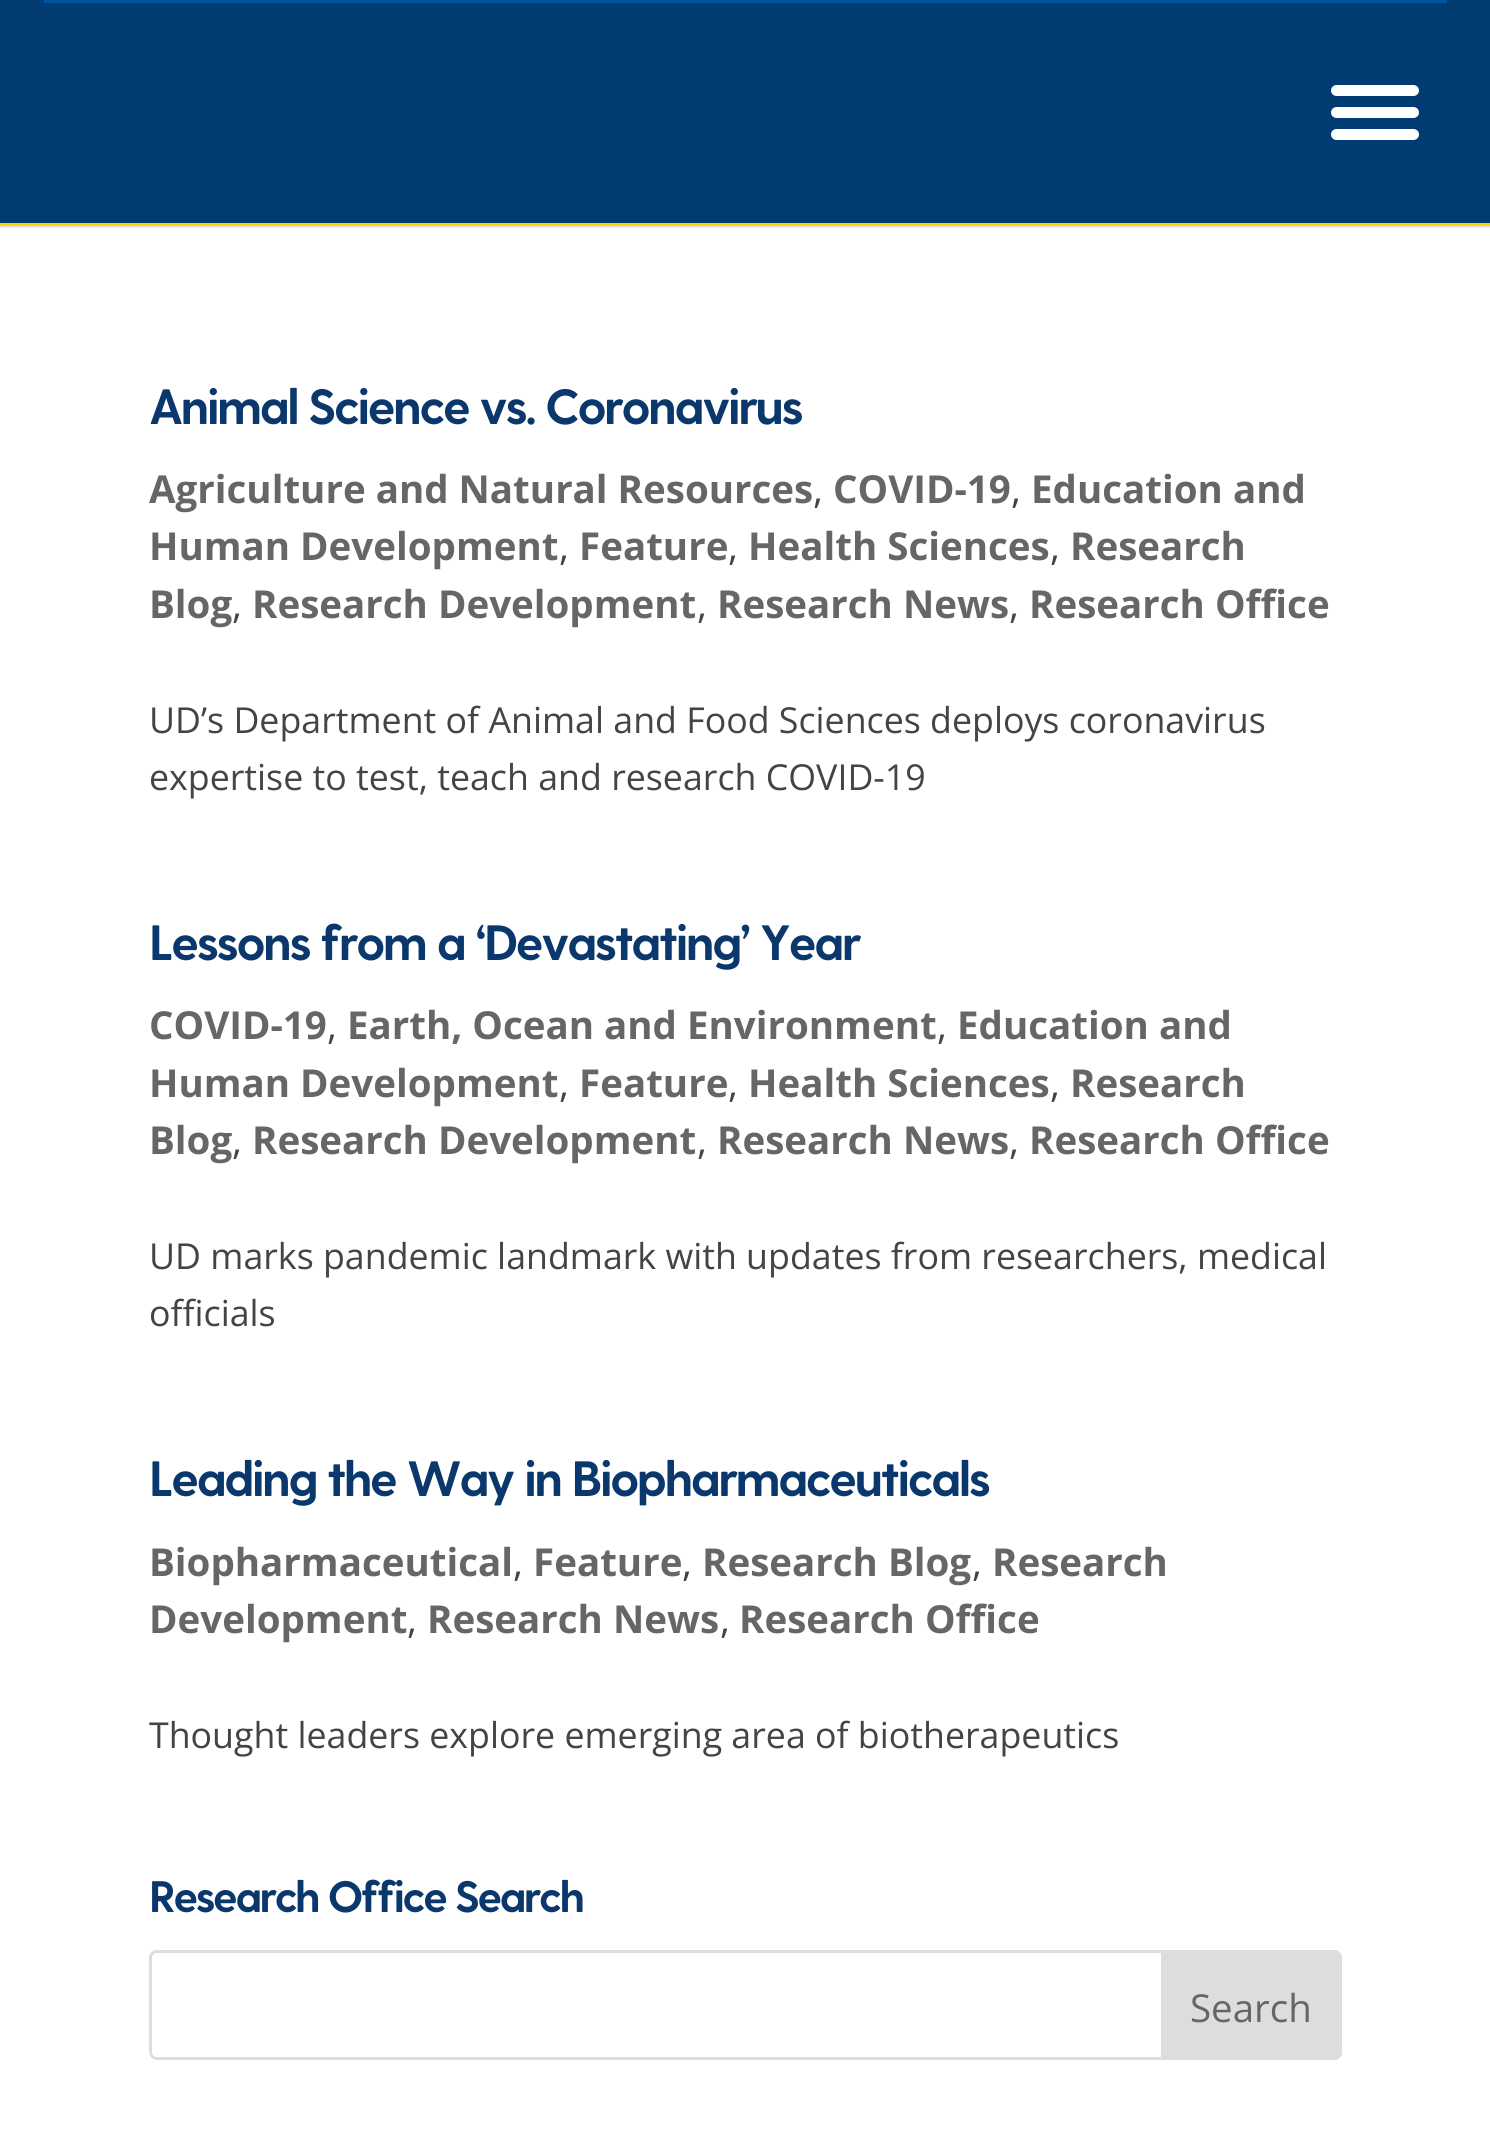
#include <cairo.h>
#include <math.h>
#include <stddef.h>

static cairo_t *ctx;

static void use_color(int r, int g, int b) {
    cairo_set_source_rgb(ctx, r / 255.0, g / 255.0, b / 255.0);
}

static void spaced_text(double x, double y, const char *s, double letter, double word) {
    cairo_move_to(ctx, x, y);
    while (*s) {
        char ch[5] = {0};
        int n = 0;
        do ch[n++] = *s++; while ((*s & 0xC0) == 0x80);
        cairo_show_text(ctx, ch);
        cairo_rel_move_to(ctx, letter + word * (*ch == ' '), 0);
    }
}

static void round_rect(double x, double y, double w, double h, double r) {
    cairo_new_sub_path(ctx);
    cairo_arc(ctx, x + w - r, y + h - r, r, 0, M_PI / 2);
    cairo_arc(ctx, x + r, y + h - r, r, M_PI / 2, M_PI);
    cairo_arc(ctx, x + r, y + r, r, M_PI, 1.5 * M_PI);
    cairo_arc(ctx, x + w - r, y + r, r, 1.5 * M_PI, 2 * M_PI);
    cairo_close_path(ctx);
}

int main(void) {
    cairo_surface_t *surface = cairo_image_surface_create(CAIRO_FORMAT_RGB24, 1490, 2129);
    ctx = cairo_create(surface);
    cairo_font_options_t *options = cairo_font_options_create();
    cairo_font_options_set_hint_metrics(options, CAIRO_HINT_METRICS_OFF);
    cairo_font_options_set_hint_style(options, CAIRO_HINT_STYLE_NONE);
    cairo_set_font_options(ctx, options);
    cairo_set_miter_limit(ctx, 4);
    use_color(255, 255, 255);
    cairo_paint(ctx);
    use_color(230, 230, 230);
    cairo_new_path(ctx);
    cairo_move_to(ctx, 0, 226);
    cairo_line_to(ctx, 0, 228);
    cairo_line_to(ctx, 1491, 228);
    cairo_line_to(ctx, 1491, 3);
    cairo_line_to(ctx, 1490, 3);
    cairo_line_to(ctx, 1490, 226);
    cairo_close_path(ctx);
    cairo_fill(ctx);
    use_color(0, 60, 113);
    cairo_rectangle(ctx, 0, 0, 1490, 223);
    cairo_fill(ctx);
    use_color(255, 211, 0);
    cairo_rectangle(ctx, 0, 223, 1490, 3);
    cairo_fill(ctx);
    use_color(0, 83, 159);
    cairo_rectangle(ctx, 44, 0, 1403, 3);
    cairo_fill(ctx);
    use_color(255, 255, 255);
    round_rect(1331, 85, 88, 11, 5.5);
    cairo_fill(ctx);
    round_rect(1331, 107, 88, 11, 5.5);
    cairo_fill(ctx);
    round_rect(1331, 129, 88, 11, 5.5);
    cairo_fill(ctx);
    cairo_select_font_face(ctx, "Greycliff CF", CAIRO_FONT_SLANT_NORMAL, CAIRO_FONT_WEIGHT_BOLD);
    cairo_set_font_size(ctx, 49.5);
    use_color(11, 56, 108);
    spaced_text(149, 424, "Animal Science vs. Coronavirus", -2.75, 0);
    cairo_select_font_face(ctx, "Open Sans", CAIRO_FONT_SLANT_NORMAL, CAIRO_FONT_WEIGHT_BOLD);
    cairo_set_font_size(ctx, 38.5);
    use_color(102, 102, 102);
    cairo_move_to(ctx, 149, 503);
    cairo_show_text(ctx, "Agriculture and Natural Resources");
    cairo_select_font_face(ctx, "Open Sans", CAIRO_FONT_SLANT_NORMAL, CAIRO_FONT_WEIGHT_NORMAL);
    use_color(68, 68, 68);
    cairo_move_to(ctx, 813, 503);
    cairo_show_text(ctx, ",");
    cairo_select_font_face(ctx, "Open Sans", CAIRO_FONT_SLANT_NORMAL, CAIRO_FONT_WEIGHT_BOLD);
    use_color(102, 102, 102);
    cairo_move_to(ctx, 833, 503);
    cairo_show_text(ctx, "COVID-19");
    cairo_select_font_face(ctx, "Open Sans", CAIRO_FONT_SLANT_NORMAL, CAIRO_FONT_WEIGHT_NORMAL);
    use_color(68, 68, 68);
    cairo_move_to(ctx, 1011, 503);
    cairo_show_text(ctx, ",");
    cairo_select_font_face(ctx, "Open Sans", CAIRO_FONT_SLANT_NORMAL, CAIRO_FONT_WEIGHT_BOLD);
    use_color(102, 102, 102);
    cairo_move_to(ctx, 1031, 503);
    cairo_show_text(ctx, "Education and");
    cairo_move_to(ctx, 149, 560);
    cairo_show_text(ctx, "Human Development");
    cairo_select_font_face(ctx, "Open Sans", CAIRO_FONT_SLANT_NORMAL, CAIRO_FONT_WEIGHT_NORMAL);
    use_color(68, 68, 68);
    cairo_move_to(ctx, 559, 560);
    cairo_show_text(ctx, ",");
    cairo_select_font_face(ctx, "Open Sans", CAIRO_FONT_SLANT_NORMAL, CAIRO_FONT_WEIGHT_BOLD);
    use_color(102, 102, 102);
    cairo_move_to(ctx, 579, 560);
    cairo_show_text(ctx, "Feature");
    cairo_select_font_face(ctx, "Open Sans", CAIRO_FONT_SLANT_NORMAL, CAIRO_FONT_WEIGHT_NORMAL);
    use_color(68, 68, 68);
    cairo_move_to(ctx, 728, 560);
    cairo_show_text(ctx, ",");
    cairo_select_font_face(ctx, "Open Sans", CAIRO_FONT_SLANT_NORMAL, CAIRO_FONT_WEIGHT_BOLD);
    use_color(102, 102, 102);
    cairo_move_to(ctx, 748, 560);
    cairo_show_text(ctx, "Health Sciences");
    cairo_select_font_face(ctx, "Open Sans", CAIRO_FONT_SLANT_NORMAL, CAIRO_FONT_WEIGHT_NORMAL);
    use_color(68, 68, 68);
    cairo_move_to(ctx, 1050, 560);
    cairo_show_text(ctx, ",");
    cairo_select_font_face(ctx, "Open Sans", CAIRO_FONT_SLANT_NORMAL, CAIRO_FONT_WEIGHT_BOLD);
    use_color(102, 102, 102);
    cairo_move_to(ctx, 1070, 560);
    cairo_show_text(ctx, "Research");
    cairo_move_to(ctx, 149, 618);
    cairo_show_text(ctx, "Blog");
    cairo_select_font_face(ctx, "Open Sans", CAIRO_FONT_SLANT_NORMAL, CAIRO_FONT_WEIGHT_NORMAL);
    use_color(68, 68, 68);
    cairo_move_to(ctx, 232, 618);
    cairo_show_text(ctx, ",");
    cairo_select_font_face(ctx, "Open Sans", CAIRO_FONT_SLANT_NORMAL, CAIRO_FONT_WEIGHT_BOLD);
    use_color(102, 102, 102);
    cairo_move_to(ctx, 252, 618);
    cairo_show_text(ctx, "Research Development");
    cairo_select_font_face(ctx, "Open Sans", CAIRO_FONT_SLANT_NORMAL, CAIRO_FONT_WEIGHT_NORMAL);
    use_color(68, 68, 68);
    cairo_move_to(ctx, 697, 618);
    cairo_show_text(ctx, ",");
    cairo_select_font_face(ctx, "Open Sans", CAIRO_FONT_SLANT_NORMAL, CAIRO_FONT_WEIGHT_BOLD);
    use_color(102, 102, 102);
    cairo_move_to(ctx, 717, 618);
    cairo_show_text(ctx, "Research News");
    cairo_select_font_face(ctx, "Open Sans", CAIRO_FONT_SLANT_NORMAL, CAIRO_FONT_WEIGHT_NORMAL);
    use_color(68, 68, 68);
    cairo_move_to(ctx, 1009, 618);
    cairo_show_text(ctx, ",");
    cairo_select_font_face(ctx, "Open Sans", CAIRO_FONT_SLANT_NORMAL, CAIRO_FONT_WEIGHT_BOLD);
    use_color(102, 102, 102);
    cairo_move_to(ctx, 1029, 618);
    cairo_show_text(ctx, "Research Office");
    cairo_select_font_face(ctx, "Open Sans", CAIRO_FONT_SLANT_NORMAL, CAIRO_FONT_WEIGHT_NORMAL);
    cairo_set_font_size(ctx, 35.75);
    use_color(68, 68, 68);
    cairo_move_to(ctx, 149, 733);
    cairo_show_text(ctx, "UD’s Department of Animal and Food Sciences deploys coronavirus");
    cairo_move_to(ctx, 149, 790);
    cairo_show_text(ctx, "expertise to test, teach and research COVID-19");
    cairo_select_font_face(ctx, "Greycliff CF", CAIRO_FONT_SLANT_NORMAL, CAIRO_FONT_WEIGHT_BOLD);
    cairo_set_font_size(ctx, 49.5);
    use_color(11, 56, 108);
    spaced_text(149, 960, "Lessons from a ‘Devastating’ Year", -2.75, 0);
    cairo_select_font_face(ctx, "Open Sans", CAIRO_FONT_SLANT_NORMAL, CAIRO_FONT_WEIGHT_BOLD);
    cairo_set_font_size(ctx, 38.5);
    use_color(102, 102, 102);
    cairo_move_to(ctx, 149, 1039);
    cairo_show_text(ctx, "COVID-19");
    cairo_select_font_face(ctx, "Open Sans", CAIRO_FONT_SLANT_NORMAL, CAIRO_FONT_WEIGHT_NORMAL);
    use_color(68, 68, 68);
    cairo_move_to(ctx, 327, 1039);
    cairo_show_text(ctx, ",");
    cairo_select_font_face(ctx, "Open Sans", CAIRO_FONT_SLANT_NORMAL, CAIRO_FONT_WEIGHT_BOLD);
    use_color(102, 102, 102);
    cairo_move_to(ctx, 347, 1039);
    cairo_show_text(ctx, "Earth, Ocean and Environment");
    cairo_select_font_face(ctx, "Open Sans", CAIRO_FONT_SLANT_NORMAL, CAIRO_FONT_WEIGHT_NORMAL);
    use_color(68, 68, 68);
    cairo_move_to(ctx, 937, 1039);
    cairo_show_text(ctx, ",");
    cairo_select_font_face(ctx, "Open Sans", CAIRO_FONT_SLANT_NORMAL, CAIRO_FONT_WEIGHT_BOLD);
    use_color(102, 102, 102);
    cairo_move_to(ctx, 957, 1039);
    cairo_show_text(ctx, "Education and");
    cairo_move_to(ctx, 149, 1097);
    cairo_show_text(ctx, "Human Development");
    cairo_select_font_face(ctx, "Open Sans", CAIRO_FONT_SLANT_NORMAL, CAIRO_FONT_WEIGHT_NORMAL);
    use_color(68, 68, 68);
    cairo_move_to(ctx, 559, 1097);
    cairo_show_text(ctx, ",");
    cairo_select_font_face(ctx, "Open Sans", CAIRO_FONT_SLANT_NORMAL, CAIRO_FONT_WEIGHT_BOLD);
    use_color(102, 102, 102);
    cairo_move_to(ctx, 579, 1097);
    cairo_show_text(ctx, "Feature");
    cairo_select_font_face(ctx, "Open Sans", CAIRO_FONT_SLANT_NORMAL, CAIRO_FONT_WEIGHT_NORMAL);
    use_color(68, 68, 68);
    cairo_move_to(ctx, 728, 1097);
    cairo_show_text(ctx, ",");
    cairo_select_font_face(ctx, "Open Sans", CAIRO_FONT_SLANT_NORMAL, CAIRO_FONT_WEIGHT_BOLD);
    use_color(102, 102, 102);
    cairo_move_to(ctx, 748, 1097);
    cairo_show_text(ctx, "Health Sciences");
    cairo_select_font_face(ctx, "Open Sans", CAIRO_FONT_SLANT_NORMAL, CAIRO_FONT_WEIGHT_NORMAL);
    use_color(68, 68, 68);
    cairo_move_to(ctx, 1050, 1097);
    cairo_show_text(ctx, ",");
    cairo_select_font_face(ctx, "Open Sans", CAIRO_FONT_SLANT_NORMAL, CAIRO_FONT_WEIGHT_BOLD);
    use_color(102, 102, 102);
    cairo_move_to(ctx, 1070, 1097);
    cairo_show_text(ctx, "Research");
    cairo_move_to(ctx, 149, 1154);
    cairo_show_text(ctx, "Blog");
    cairo_select_font_face(ctx, "Open Sans", CAIRO_FONT_SLANT_NORMAL, CAIRO_FONT_WEIGHT_NORMAL);
    use_color(68, 68, 68);
    cairo_move_to(ctx, 232, 1154);
    cairo_show_text(ctx, ",");
    cairo_select_font_face(ctx, "Open Sans", CAIRO_FONT_SLANT_NORMAL, CAIRO_FONT_WEIGHT_BOLD);
    use_color(102, 102, 102);
    cairo_move_to(ctx, 252, 1154);
    cairo_show_text(ctx, "Research Development");
    cairo_select_font_face(ctx, "Open Sans", CAIRO_FONT_SLANT_NORMAL, CAIRO_FONT_WEIGHT_NORMAL);
    use_color(68, 68, 68);
    cairo_move_to(ctx, 697, 1154);
    cairo_show_text(ctx, ",");
    cairo_select_font_face(ctx, "Open Sans", CAIRO_FONT_SLANT_NORMAL, CAIRO_FONT_WEIGHT_BOLD);
    use_color(102, 102, 102);
    cairo_move_to(ctx, 717, 1154);
    cairo_show_text(ctx, "Research News");
    cairo_select_font_face(ctx, "Open Sans", CAIRO_FONT_SLANT_NORMAL, CAIRO_FONT_WEIGHT_NORMAL);
    use_color(68, 68, 68);
    cairo_move_to(ctx, 1009, 1154);
    cairo_show_text(ctx, ",");
    cairo_select_font_face(ctx, "Open Sans", CAIRO_FONT_SLANT_NORMAL, CAIRO_FONT_WEIGHT_BOLD);
    use_color(102, 102, 102);
    cairo_move_to(ctx, 1029, 1154);
    cairo_show_text(ctx, "Research Office");
    cairo_select_font_face(ctx, "Open Sans", CAIRO_FONT_SLANT_NORMAL, CAIRO_FONT_WEIGHT_NORMAL);
    cairo_set_font_size(ctx, 35.75);
    use_color(68, 68, 68);
    cairo_move_to(ctx, 149, 1269);
    cairo_show_text(ctx, "UD marks pandemic landmark with updates from researchers, medical");
    cairo_move_to(ctx, 149, 1326);
    cairo_show_text(ctx, "officials");
    cairo_select_font_face(ctx, "Greycliff CF", CAIRO_FONT_SLANT_NORMAL, CAIRO_FONT_WEIGHT_BOLD);
    cairo_set_font_size(ctx, 49.5);
    use_color(11, 56, 108);
    spaced_text(149, 1496, "Leading the Way in Biopharmaceuticals", -2.75, 0);
    cairo_select_font_face(ctx, "Open Sans", CAIRO_FONT_SLANT_NORMAL, CAIRO_FONT_WEIGHT_BOLD);
    cairo_set_font_size(ctx, 38.5);
    use_color(102, 102, 102);
    cairo_move_to(ctx, 149, 1576);
    cairo_show_text(ctx, "Biopharmaceutical");
    cairo_select_font_face(ctx, "Open Sans", CAIRO_FONT_SLANT_NORMAL, CAIRO_FONT_WEIGHT_NORMAL);
    use_color(68, 68, 68);
    cairo_move_to(ctx, 513, 1576);
    cairo_show_text(ctx, ",");
    cairo_select_font_face(ctx, "Open Sans", CAIRO_FONT_SLANT_NORMAL, CAIRO_FONT_WEIGHT_BOLD);
    use_color(102, 102, 102);
    cairo_move_to(ctx, 533, 1576);
    cairo_show_text(ctx, "Feature");
    cairo_select_font_face(ctx, "Open Sans", CAIRO_FONT_SLANT_NORMAL, CAIRO_FONT_WEIGHT_NORMAL);
    use_color(68, 68, 68);
    cairo_move_to(ctx, 682, 1576);
    cairo_show_text(ctx, ",");
    cairo_select_font_face(ctx, "Open Sans", CAIRO_FONT_SLANT_NORMAL, CAIRO_FONT_WEIGHT_BOLD);
    use_color(102, 102, 102);
    cairo_move_to(ctx, 702, 1576);
    cairo_show_text(ctx, "Research Blog");
    cairo_select_font_face(ctx, "Open Sans", CAIRO_FONT_SLANT_NORMAL, CAIRO_FONT_WEIGHT_NORMAL);
    use_color(68, 68, 68);
    cairo_move_to(ctx, 972, 1576);
    cairo_show_text(ctx, ",");
    cairo_select_font_face(ctx, "Open Sans", CAIRO_FONT_SLANT_NORMAL, CAIRO_FONT_WEIGHT_BOLD);
    use_color(102, 102, 102);
    cairo_move_to(ctx, 992, 1576);
    cairo_show_text(ctx, "Research");
    cairo_move_to(ctx, 149, 1633);
    cairo_show_text(ctx, "Development");
    cairo_select_font_face(ctx, "Open Sans", CAIRO_FONT_SLANT_NORMAL, CAIRO_FONT_WEIGHT_NORMAL);
    use_color(68, 68, 68);
    cairo_move_to(ctx, 407, 1633);
    cairo_show_text(ctx, ",");
    cairo_select_font_face(ctx, "Open Sans", CAIRO_FONT_SLANT_NORMAL, CAIRO_FONT_WEIGHT_BOLD);
    use_color(102, 102, 102);
    cairo_move_to(ctx, 427, 1633);
    cairo_show_text(ctx, "Research News");
    cairo_select_font_face(ctx, "Open Sans", CAIRO_FONT_SLANT_NORMAL, CAIRO_FONT_WEIGHT_NORMAL);
    use_color(68, 68, 68);
    cairo_move_to(ctx, 720, 1633);
    cairo_show_text(ctx, ",");
    cairo_select_font_face(ctx, "Open Sans", CAIRO_FONT_SLANT_NORMAL, CAIRO_FONT_WEIGHT_BOLD);
    use_color(102, 102, 102);
    cairo_move_to(ctx, 739, 1633);
    cairo_show_text(ctx, "Research Office");
    cairo_select_font_face(ctx, "Open Sans", CAIRO_FONT_SLANT_NORMAL, CAIRO_FONT_WEIGHT_NORMAL);
    cairo_set_font_size(ctx, 35.75);
    use_color(68, 68, 68);
    cairo_move_to(ctx, 149, 1748);
    cairo_show_text(ctx, "Thought leaders explore emerging area of biotherapeutics");
    cairo_select_font_face(ctx, "Greycliff CF", CAIRO_FONT_SLANT_NORMAL, CAIRO_FONT_WEIGHT_BOLD);
    cairo_set_font_size(ctx, 44);
    use_color(11, 56, 108);
    spaced_text(149, 1912, "Research Office Search", -2.75, 0);
    round_rect(150.5, 1951.5, 1190, 107, 6.5);
    use_color(221, 221, 221);
    cairo_set_line_width(ctx, 3);
    cairo_stroke(ctx);
    cairo_new_path(ctx);
    cairo_move_to(ctx, 1162.5, 1951.5);
    cairo_line_to(ctx, 1334, 1951.5);
    cairo_curve_to(ctx, 1337.5, 1951.5, 1340.5, 1954.5, 1340.5, 1958);
    cairo_line_to(ctx, 1340.5, 2052);
    cairo_curve_to(ctx, 1340.5, 2055.5, 1337.5, 2058.5, 1334, 2058.5);
    cairo_line_to(ctx, 1162.5, 2058.5);
    cairo_close_path(ctx);
    cairo_fill_preserve(ctx);
    cairo_stroke(ctx);
    cairo_select_font_face(ctx, "Open Sans", CAIRO_FONT_SLANT_NORMAL, CAIRO_FONT_WEIGHT_NORMAL);
    cairo_set_font_size(ctx, 38.5);
    use_color(102, 102, 102);
    cairo_move_to(ctx, 1190, 2022);
    cairo_show_text(ctx, "Search");
    cairo_surface_write_to_png(surface, "result.png");
    cairo_font_options_destroy(options);
    cairo_destroy(ctx);
    cairo_surface_destroy(surface);
    return 0;
}
